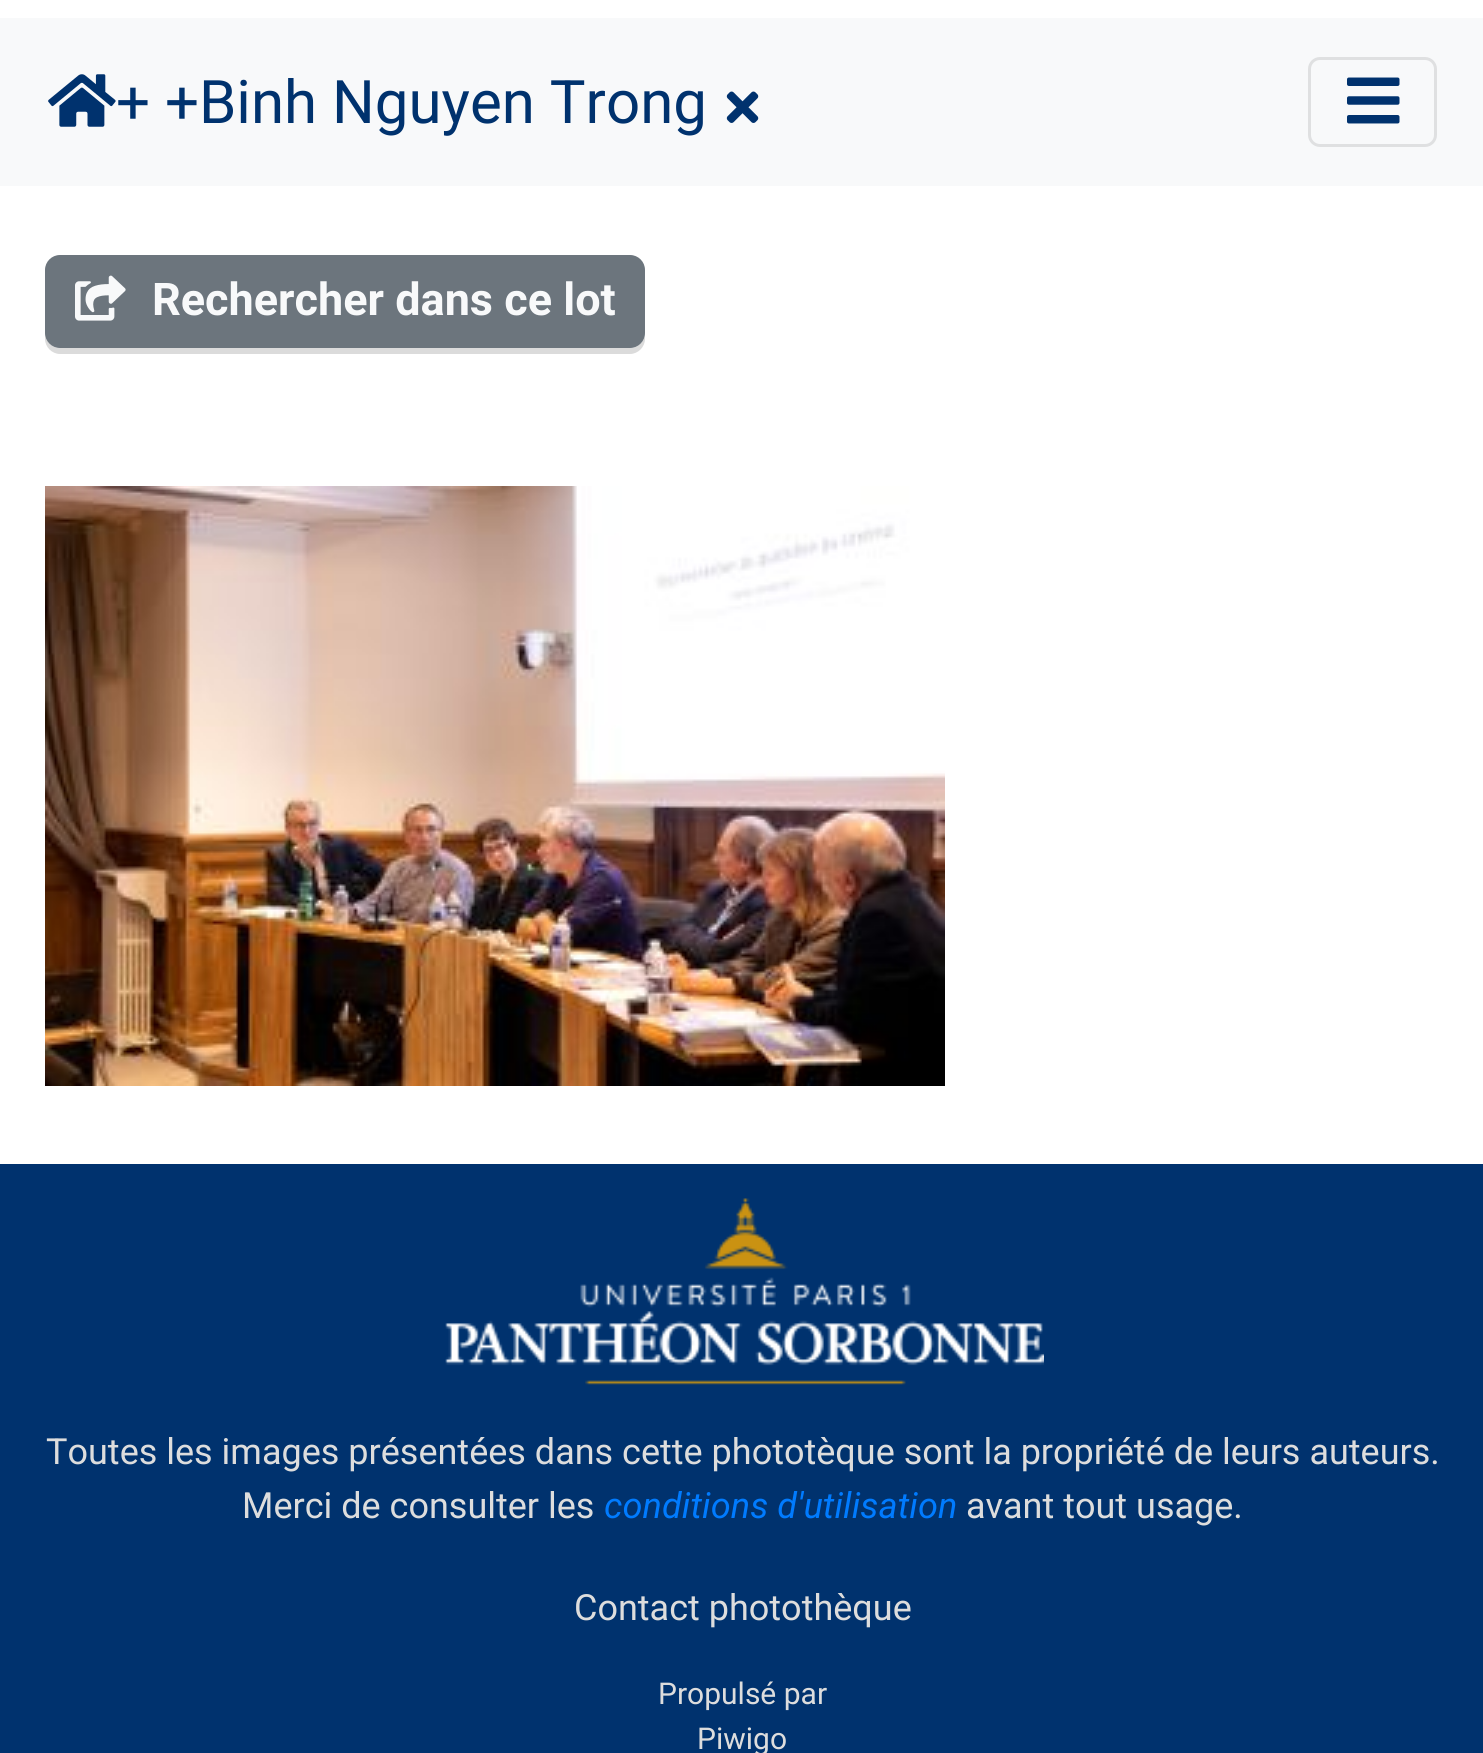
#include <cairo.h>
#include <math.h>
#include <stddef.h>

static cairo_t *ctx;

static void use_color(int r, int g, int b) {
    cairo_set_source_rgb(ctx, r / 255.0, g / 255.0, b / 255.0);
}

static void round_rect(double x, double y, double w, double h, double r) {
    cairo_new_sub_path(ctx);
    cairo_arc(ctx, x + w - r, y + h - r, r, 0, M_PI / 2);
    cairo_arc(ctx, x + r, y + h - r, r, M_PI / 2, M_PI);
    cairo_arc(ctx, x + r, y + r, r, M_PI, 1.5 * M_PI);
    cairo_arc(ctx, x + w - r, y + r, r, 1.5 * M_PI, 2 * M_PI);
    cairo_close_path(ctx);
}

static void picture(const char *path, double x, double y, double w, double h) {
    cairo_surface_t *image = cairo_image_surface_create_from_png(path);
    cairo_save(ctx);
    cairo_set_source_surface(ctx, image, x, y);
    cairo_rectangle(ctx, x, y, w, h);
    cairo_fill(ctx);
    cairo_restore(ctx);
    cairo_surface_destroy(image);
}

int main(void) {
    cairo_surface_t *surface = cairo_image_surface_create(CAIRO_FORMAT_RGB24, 1483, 1753);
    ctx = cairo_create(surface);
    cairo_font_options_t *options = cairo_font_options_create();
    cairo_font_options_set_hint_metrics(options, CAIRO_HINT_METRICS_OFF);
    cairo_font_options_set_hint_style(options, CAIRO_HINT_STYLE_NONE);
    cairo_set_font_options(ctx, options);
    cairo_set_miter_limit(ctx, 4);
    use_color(255, 255, 255);
    cairo_paint(ctx);
    use_color(248, 249, 250);
    cairo_rectangle(ctx, 0, 18, 1483, 168);
    cairo_fill(ctx);
    picture("img1.png", 48, 74, 68, 53);
    cairo_select_font_face(ctx, "Roboto", CAIRO_FONT_SLANT_NORMAL, CAIRO_FONT_WEIGHT_NORMAL);
    cairo_set_font_size(ctx, 60);
    use_color(0, 50, 110);
    cairo_move_to(ctx, 116, 123);
    cairo_show_text(ctx, "+ +Binh Nguyen Trong");
    picture("img2.png", 726, 91, 33, 32);
    round_rect(1309.5, 58.5, 126, 87, 10.5);
    use_color(223, 224, 225);
    cairo_set_line_width(ctx, 3);
    cairo_stroke(ctx);
    picture("img3.png", 1347, 77, 53, 47);
    use_color(219, 219, 219);
    cairo_new_path(ctx);
    cairo_move_to(ctx, 45, 333);
    cairo_line_to(ctx, 45, 339);
    cairo_curve_to(ctx, 45, 347, 52, 354, 60, 354);
    cairo_line_to(ctx, 630, 354);
    cairo_curve_to(ctx, 638, 354, 645, 347, 645, 339);
    cairo_line_to(ctx, 645, 333);
    cairo_curve_to(ctx, 645, 341, 638, 348, 630, 348);
    cairo_line_to(ctx, 60, 348);
    cairo_curve_to(ctx, 52, 348, 45, 341, 45, 333);
    cairo_close_path(ctx);
    cairo_fill(ctx);
    use_color(108, 117, 125);
    round_rect(45, 255, 600, 93, 15);
    cairo_fill(ctx);
    picture("img4.png", 75, 275, 51, 46);
    cairo_select_font_face(ctx, "Roboto", CAIRO_FONT_SLANT_NORMAL, CAIRO_FONT_WEIGHT_BOLD);
    cairo_set_font_size(ctx, 45);
    use_color(248, 249, 250);
    cairo_move_to(ctx, 152, 315);
    cairo_show_text(ctx, "Rechercher dans ce lot");
    picture("img5.png", 45, 486, 900, 600);
    use_color(0, 50, 110);
    cairo_rectangle(ctx, 0, 1164, 1483, 589);
    cairo_fill(ctx);
    picture("img6.png", 445, 1198, 599, 187);
    cairo_select_font_face(ctx, "Roboto", CAIRO_FONT_SLANT_NORMAL, CAIRO_FONT_WEIGHT_NORMAL);
    cairo_set_font_size(ctx, 36);
    use_color(221, 221, 221);
    cairo_move_to(ctx, 46, 1464);
    cairo_show_text(ctx, "Toutes les images présentées dans cette phototèque sont la propriété de leurs auteurs.");
    cairo_move_to(ctx, 242, 1518);
    cairo_show_text(ctx, "Merci de consulter les");
    cairo_select_font_face(ctx, "Roboto", CAIRO_FONT_SLANT_ITALIC, CAIRO_FONT_WEIGHT_NORMAL);
    use_color(0, 123, 255);
    cairo_move_to(ctx, 604, 1518);
    cairo_show_text(ctx, "conditions d'utilisation");
    cairo_select_font_face(ctx, "Roboto", CAIRO_FONT_SLANT_NORMAL, CAIRO_FONT_WEIGHT_NORMAL);
    use_color(221, 221, 221);
    cairo_move_to(ctx, 966, 1518);
    cairo_show_text(ctx, "avant tout usage.");
    cairo_move_to(ctx, 574, 1620);
    cairo_show_text(ctx, "Contact photothèque");
    cairo_set_font_size(ctx, 30);
    cairo_move_to(ctx, 658, 1704);
    cairo_show_text(ctx, "Propulsé par");
    cairo_move_to(ctx, 697, 1749);
    cairo_show_text(ctx, "Piwigo");
    cairo_surface_write_to_png(surface, "result.png");
    cairo_font_options_destroy(options);
    cairo_destroy(ctx);
    cairo_surface_destroy(surface);
    return 0;
}
